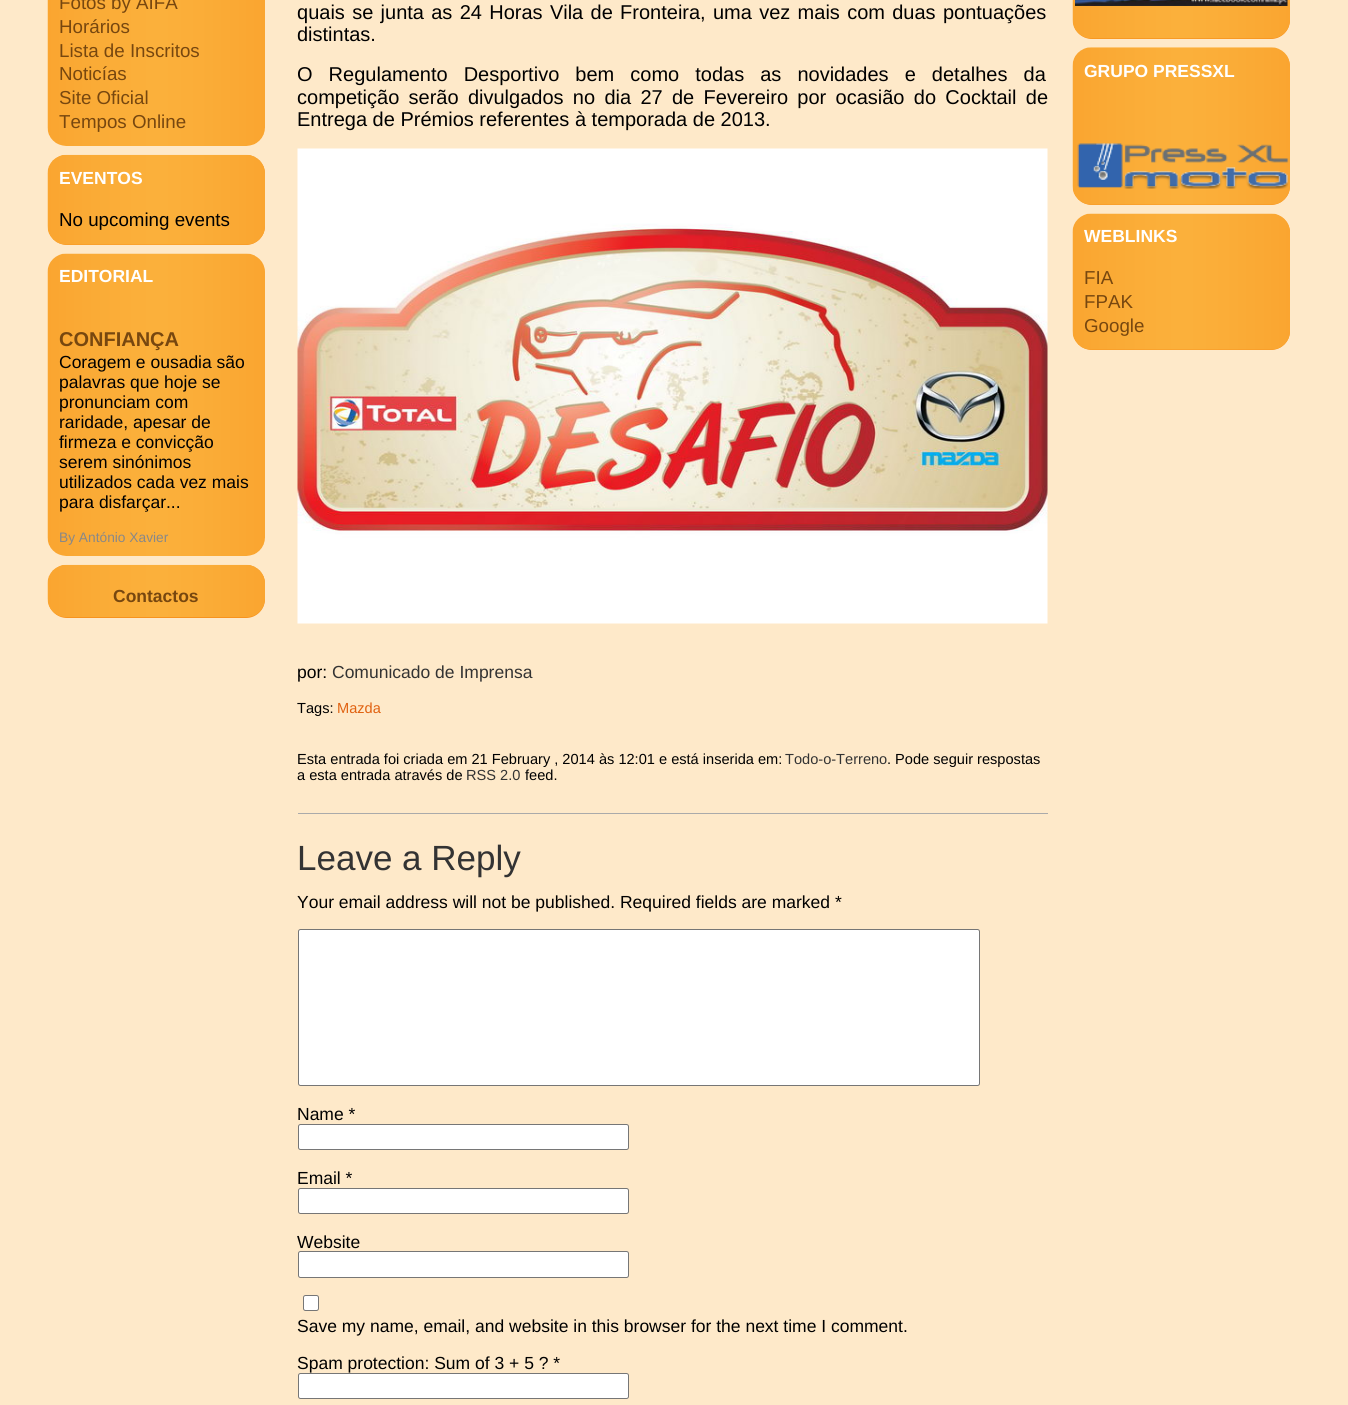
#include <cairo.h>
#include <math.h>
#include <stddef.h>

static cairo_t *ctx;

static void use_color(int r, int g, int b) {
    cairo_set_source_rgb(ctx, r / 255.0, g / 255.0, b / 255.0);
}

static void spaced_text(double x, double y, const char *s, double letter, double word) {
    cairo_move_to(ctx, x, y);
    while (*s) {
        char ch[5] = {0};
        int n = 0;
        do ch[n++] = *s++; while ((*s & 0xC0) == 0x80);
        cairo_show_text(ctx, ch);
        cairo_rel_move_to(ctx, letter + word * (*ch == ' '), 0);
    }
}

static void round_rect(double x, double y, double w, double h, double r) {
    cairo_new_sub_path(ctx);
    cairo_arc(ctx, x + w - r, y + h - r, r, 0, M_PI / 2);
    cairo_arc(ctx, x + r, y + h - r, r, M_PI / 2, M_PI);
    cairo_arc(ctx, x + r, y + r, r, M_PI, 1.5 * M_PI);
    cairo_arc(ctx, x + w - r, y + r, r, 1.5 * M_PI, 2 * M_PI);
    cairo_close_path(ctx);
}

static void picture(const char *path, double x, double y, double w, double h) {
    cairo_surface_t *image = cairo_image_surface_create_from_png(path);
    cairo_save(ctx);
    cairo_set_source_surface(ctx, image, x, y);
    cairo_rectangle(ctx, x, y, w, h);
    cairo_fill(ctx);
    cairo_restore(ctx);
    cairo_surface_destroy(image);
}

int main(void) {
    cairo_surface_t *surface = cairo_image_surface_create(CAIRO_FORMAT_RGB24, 1348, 1405);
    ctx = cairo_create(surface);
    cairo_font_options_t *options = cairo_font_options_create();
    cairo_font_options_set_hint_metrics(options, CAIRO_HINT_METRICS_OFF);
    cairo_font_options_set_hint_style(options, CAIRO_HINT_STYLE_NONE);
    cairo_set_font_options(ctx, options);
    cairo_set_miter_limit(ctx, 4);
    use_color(254, 233, 201);
    cairo_paint(ctx);
    picture("img1.png", 47, 0, 218, 146);
    cairo_select_font_face(ctx, "Liberation Sans", CAIRO_FONT_SLANT_NORMAL, CAIRO_FONT_WEIGHT_NORMAL);
    cairo_set_font_size(ctx, 18.75);
    use_color(119, 71, 15);
    cairo_move_to(ctx, 59, 9);
    cairo_show_text(ctx, "Fotos by AIFA");
    cairo_move_to(ctx, 59, 33);
    cairo_show_text(ctx, "Horários");
    cairo_move_to(ctx, 59, 57);
    cairo_show_text(ctx, "Lista de Inscritos");
    cairo_move_to(ctx, 59, 80);
    cairo_show_text(ctx, "Noticías");
    cairo_move_to(ctx, 59, 104);
    cairo_show_text(ctx, "Site Oficial");
    cairo_move_to(ctx, 59, 128);
    cairo_show_text(ctx, "Tempos Online");
    use_color(247, 147, 30);
    round_rect(48, 155, 217, 90, 19);
    cairo_fill(ctx);
    picture("img2.png", 47, 154, 218, 91);
    cairo_select_font_face(ctx, "Liberation Sans", CAIRO_FONT_SLANT_NORMAL, CAIRO_FONT_WEIGHT_BOLD);
    cairo_set_font_size(ctx, 17.5);
    use_color(255, 255, 255);
    cairo_move_to(ctx, 59, 184);
    cairo_show_text(ctx, "EVENTOS");
    cairo_select_font_face(ctx, "Liberation Sans", CAIRO_FONT_SLANT_NORMAL, CAIRO_FONT_WEIGHT_NORMAL);
    cairo_set_font_size(ctx, 18.75);
    use_color(0, 0, 0);
    cairo_move_to(ctx, 59, 226);
    cairo_show_text(ctx, "No upcoming events");
    picture("img3.png", 47, 253, 218, 303);
    cairo_select_font_face(ctx, "Liberation Sans", CAIRO_FONT_SLANT_NORMAL, CAIRO_FONT_WEIGHT_BOLD);
    cairo_set_font_size(ctx, 17.5);
    use_color(255, 255, 255);
    cairo_move_to(ctx, 59, 282);
    cairo_show_text(ctx, "EDITORIAL");
    cairo_set_font_size(ctx, 20);
    use_color(119, 71, 15);
    cairo_move_to(ctx, 59, 346);
    cairo_show_text(ctx, "CONFIANÇA");
    cairo_select_font_face(ctx, "Liberation Sans", CAIRO_FONT_SLANT_NORMAL, CAIRO_FONT_WEIGHT_NORMAL);
    cairo_set_font_size(ctx, 17.5);
    use_color(0, 0, 0);
    cairo_move_to(ctx, 59, 368);
    cairo_show_text(ctx, "Coragem e ousadia são");
    cairo_move_to(ctx, 59, 388);
    cairo_show_text(ctx, "palavras que hoje se");
    cairo_move_to(ctx, 59, 408);
    cairo_show_text(ctx, "pronunciam com");
    cairo_move_to(ctx, 59, 428);
    cairo_show_text(ctx, "raridade, apesar de");
    cairo_move_to(ctx, 59, 448);
    cairo_show_text(ctx, "firmeza e convicção");
    cairo_move_to(ctx, 59, 468);
    cairo_show_text(ctx, "serem sinónimos");
    cairo_move_to(ctx, 59, 488);
    cairo_show_text(ctx, "utilizados cada vez mais");
    cairo_move_to(ctx, 59, 508);
    cairo_show_text(ctx, "para disfarçar...");
    cairo_set_font_size(ctx, 13.75);
    use_color(136, 136, 136);
    cairo_move_to(ctx, 59, 542);
    cairo_show_text(ctx, "By António Xavier");
    use_color(247, 147, 30);
    round_rect(48, 565, 217, 53, 19);
    cairo_fill(ctx);
    picture("img4.png", 47, 564, 218, 53);
    cairo_select_font_face(ctx, "Liberation Sans", CAIRO_FONT_SLANT_NORMAL, CAIRO_FONT_WEIGHT_BOLD);
    cairo_set_font_size(ctx, 17.5);
    use_color(119, 71, 15);
    cairo_move_to(ctx, 113, 602);
    cairo_show_text(ctx, "Contactos");
    use_color(170, 170, 170);
    cairo_rectangle(ctx, 298, 813, 750, 1);
    cairo_fill(ctx);
    cairo_select_font_face(ctx, "Liberation Sans", CAIRO_FONT_SLANT_NORMAL, CAIRO_FONT_WEIGHT_NORMAL);
    cairo_set_font_size(ctx, 20);
    use_color(0, 0, 0);
    spaced_text(297, 19, "quais se junta as 24 Horas Vila de Fronteira, uma vez mais com duas pontuações", 0, 1.75);
    cairo_move_to(ctx, 297, 41);
    cairo_show_text(ctx, "distintas.");
    spaced_text(297, 81, "O Regulamento Desportivo bem como todas as novidades e detalhes da", 0, 10.5);
    spaced_text(297, 104, "competição serão divulgados no dia 27 de Fevereiro por ocasião do Cocktail de", 0, 3.75);
    cairo_move_to(ctx, 297, 126);
    cairo_show_text(ctx, "Entrega de Prémios referentes à temporada de 2013.");
    picture("img5.png", 297, 148, 751, 476);
    cairo_set_font_size(ctx, 17.5);
    cairo_move_to(ctx, 297, 678);
    cairo_show_text(ctx, "por:");
    use_color(51, 51, 51);
    cairo_move_to(ctx, 332, 678);
    cairo_show_text(ctx, "Comunicado de Imprensa");
    cairo_set_font_size(ctx, 14.6);
    use_color(0, 0, 0);
    cairo_move_to(ctx, 297, 713);
    cairo_show_text(ctx, "Tags:");
    use_color(224, 97, 16);
    cairo_move_to(ctx, 337, 713);
    cairo_show_text(ctx, "Mazda");
    use_color(0, 0, 0);
    cairo_move_to(ctx, 297, 764);
    cairo_show_text(ctx, "Esta entrada foi criada em 21 February , 2014 às 12:01 e está inserida em:");
    use_color(51, 51, 51);
    cairo_move_to(ctx, 785, 764);
    cairo_show_text(ctx, "Todo-o-Terreno");
    use_color(0, 0, 0);
    cairo_move_to(ctx, 887, 764);
    cairo_show_text(ctx, ". Pode seguir respostas");
    cairo_move_to(ctx, 297, 780);
    cairo_show_text(ctx, "a esta entrada através de");
    use_color(51, 51, 51);
    cairo_move_to(ctx, 466, 780);
    cairo_show_text(ctx, "RSS 2.0");
    use_color(0, 0, 0);
    cairo_move_to(ctx, 525, 780);
    cairo_show_text(ctx, "feed.");
    cairo_set_font_size(ctx, 35);
    use_color(51, 51, 51);
    cairo_move_to(ctx, 297, 870);
    cairo_show_text(ctx, "Leave a Reply");
    cairo_set_font_size(ctx, 17.5);
    use_color(0, 0, 0);
    cairo_move_to(ctx, 297, 908);
    cairo_show_text(ctx, "Your email address will not be published. Required fields are marked *");
    use_color(255, 255, 255);
    round_rect(298.5, 929.5, 681, 156, 2);
    cairo_fill_preserve(ctx);
    use_color(118, 118, 118);
    cairo_set_line_width(ctx, 1);
    cairo_stroke(ctx);
    use_color(0, 0, 0);
    cairo_move_to(ctx, 297, 1120);
    cairo_show_text(ctx, "Name *");
    use_color(255, 255, 255);
    round_rect(298.5, 1124.5, 330, 25, 2);
    cairo_fill_preserve(ctx);
    use_color(118, 118, 118);
    cairo_stroke(ctx);
    use_color(0, 0, 0);
    cairo_move_to(ctx, 297, 1184);
    cairo_show_text(ctx, "Email *");
    use_color(255, 255, 255);
    round_rect(298.5, 1188.5, 330, 25, 2);
    cairo_fill_preserve(ctx);
    use_color(118, 118, 118);
    cairo_stroke(ctx);
    use_color(0, 0, 0);
    cairo_move_to(ctx, 297, 1248);
    cairo_show_text(ctx, "Website");
    use_color(255, 255, 255);
    round_rect(298.5, 1251.5, 330, 26, 2);
    cairo_fill_preserve(ctx);
    use_color(118, 118, 118);
    cairo_stroke(ctx);
    use_color(255, 255, 255);
    round_rect(303.5, 1295.5, 15, 15, 2);
    cairo_fill_preserve(ctx);
    use_color(118, 118, 118);
    cairo_stroke(ctx);
    use_color(0, 0, 0);
    cairo_move_to(ctx, 297, 1332);
    cairo_show_text(ctx, "Save my name, email, and website in this browser for the next time I comment.");
    cairo_move_to(ctx, 297, 1369);
    cairo_show_text(ctx, "Spam protection: Sum of 3 + 5 ? *");
    use_color(255, 255, 255);
    round_rect(298.5, 1373.5, 330, 25, 2);
    cairo_fill_preserve(ctx);
    use_color(118, 118, 118);
    cairo_stroke(ctx);
    use_color(247, 147, 30);
    round_rect(1073, -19, 217, 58, 19);
    cairo_fill(ctx);
    picture("img6.png", 1072, 0, 218, 39);
    picture("img7.png", 1075, 0, 213, 6);
    round_rect(1073, 48, 217, 157, 19);
    cairo_fill(ctx);
    picture("img8.png", 1072, 47, 218, 158);
    cairo_select_font_face(ctx, "Liberation Sans", CAIRO_FONT_SLANT_NORMAL, CAIRO_FONT_WEIGHT_BOLD);
    use_color(255, 255, 255);
    cairo_move_to(ctx, 1084, 77);
    cairo_show_text(ctx, "GRUPO PRESSXL");
    picture("img9.png", 1077, 143, 212, 46);
    use_color(247, 147, 30);
    round_rect(1073, 214, 217, 136, 19);
    cairo_fill(ctx);
    picture("img10.png", 1072, 213, 218, 137);
    use_color(255, 255, 255);
    cairo_move_to(ctx, 1084, 242);
    cairo_show_text(ctx, "WEBLINKS");
    cairo_select_font_face(ctx, "Liberation Sans", CAIRO_FONT_SLANT_NORMAL, CAIRO_FONT_WEIGHT_NORMAL);
    cairo_set_font_size(ctx, 18.75);
    use_color(119, 71, 15);
    cairo_move_to(ctx, 1084, 284);
    cairo_show_text(ctx, "FIA");
    cairo_move_to(ctx, 1084, 308);
    cairo_show_text(ctx, "FPAK");
    cairo_move_to(ctx, 1084, 332);
    cairo_show_text(ctx, "Google");
    cairo_surface_write_to_png(surface, "result.png");
    cairo_font_options_destroy(options);
    cairo_destroy(ctx);
    cairo_surface_destroy(surface);
    return 0;
}
